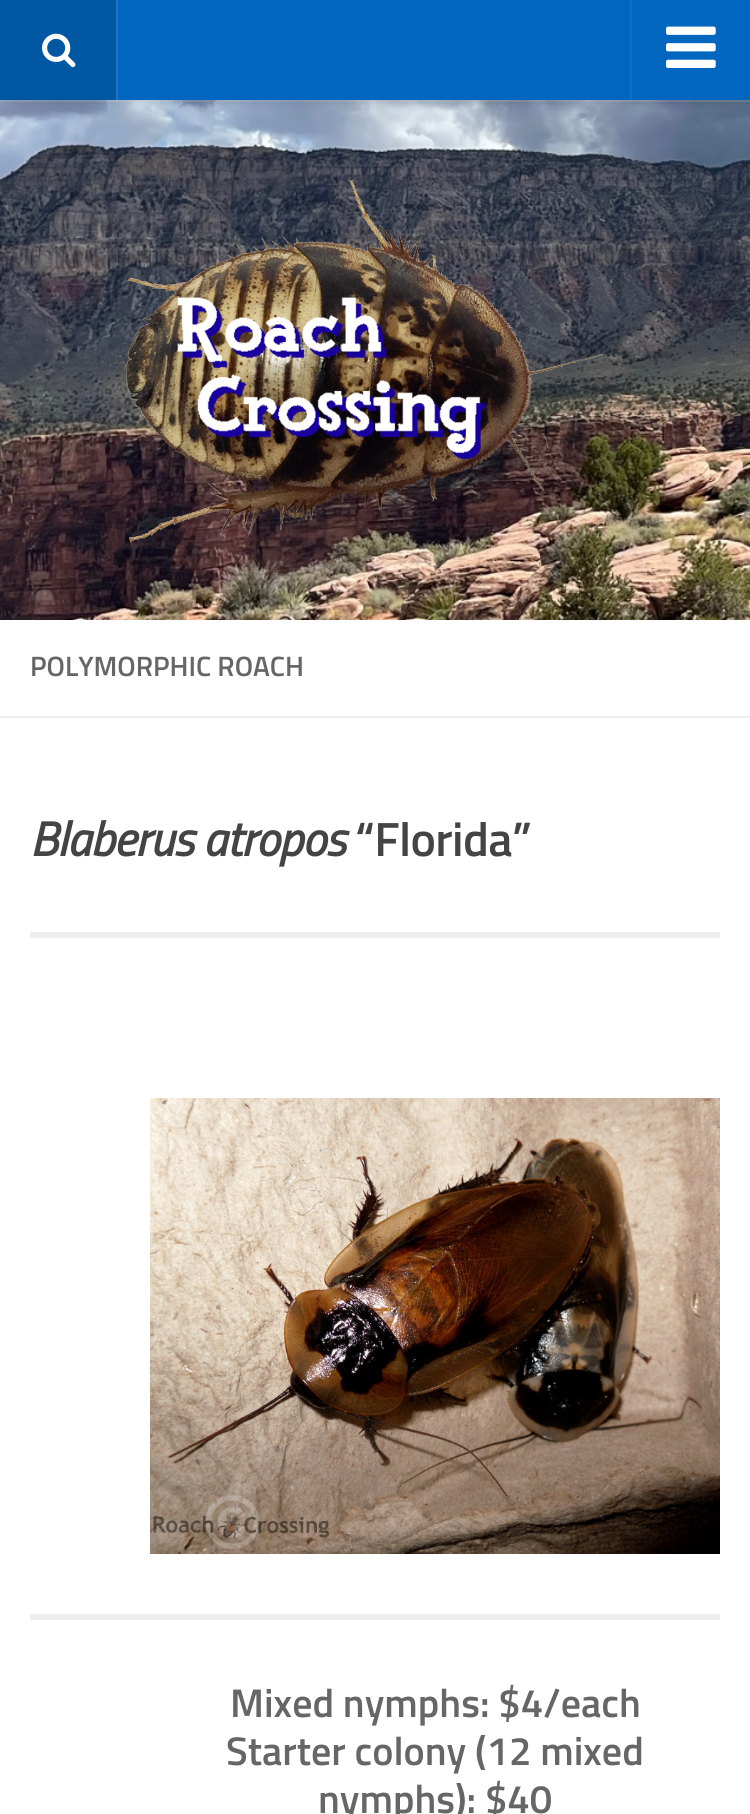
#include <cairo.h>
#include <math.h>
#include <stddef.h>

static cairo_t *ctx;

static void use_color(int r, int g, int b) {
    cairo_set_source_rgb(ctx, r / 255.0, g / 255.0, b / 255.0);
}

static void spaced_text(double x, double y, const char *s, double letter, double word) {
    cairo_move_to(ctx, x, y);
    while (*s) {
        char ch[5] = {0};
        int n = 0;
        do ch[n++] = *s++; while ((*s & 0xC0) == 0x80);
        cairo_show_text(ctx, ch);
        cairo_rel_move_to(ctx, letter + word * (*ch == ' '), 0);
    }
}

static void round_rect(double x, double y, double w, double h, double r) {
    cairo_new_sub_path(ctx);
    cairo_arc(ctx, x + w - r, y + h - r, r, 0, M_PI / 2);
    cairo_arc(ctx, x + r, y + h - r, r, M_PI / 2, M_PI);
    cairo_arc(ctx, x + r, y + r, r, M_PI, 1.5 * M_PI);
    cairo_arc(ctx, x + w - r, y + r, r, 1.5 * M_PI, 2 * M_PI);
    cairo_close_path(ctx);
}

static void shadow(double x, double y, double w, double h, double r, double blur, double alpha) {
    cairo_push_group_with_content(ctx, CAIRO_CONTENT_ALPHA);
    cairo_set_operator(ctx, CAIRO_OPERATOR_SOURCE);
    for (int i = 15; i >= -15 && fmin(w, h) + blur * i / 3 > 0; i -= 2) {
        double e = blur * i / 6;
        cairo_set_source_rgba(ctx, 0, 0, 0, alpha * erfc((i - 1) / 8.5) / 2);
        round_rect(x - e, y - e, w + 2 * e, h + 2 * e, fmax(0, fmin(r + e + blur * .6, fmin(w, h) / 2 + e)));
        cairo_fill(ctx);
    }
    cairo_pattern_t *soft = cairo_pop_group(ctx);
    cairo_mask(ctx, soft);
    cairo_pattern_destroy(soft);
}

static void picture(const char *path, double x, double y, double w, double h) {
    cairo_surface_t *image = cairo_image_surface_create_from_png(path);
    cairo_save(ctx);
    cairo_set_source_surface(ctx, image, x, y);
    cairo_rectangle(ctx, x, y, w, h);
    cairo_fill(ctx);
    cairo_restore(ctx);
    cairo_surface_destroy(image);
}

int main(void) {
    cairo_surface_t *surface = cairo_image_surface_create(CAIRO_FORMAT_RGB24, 750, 1814);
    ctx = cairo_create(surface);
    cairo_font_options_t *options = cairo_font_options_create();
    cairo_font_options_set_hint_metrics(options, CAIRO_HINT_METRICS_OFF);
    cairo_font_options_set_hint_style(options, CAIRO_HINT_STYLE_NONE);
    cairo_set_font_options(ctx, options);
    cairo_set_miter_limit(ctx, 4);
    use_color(255, 255, 255);
    cairo_paint(ctx);
    picture("img3.png", 0, 100, 750, 520);
    cairo_set_source_rgba(ctx, 1, 1, 1, 0.15);
    cairo_rectangle(ctx, 0, 100, 750, 2);
    cairo_fill(ctx);
    use_color(0, 0, 0);
    shadow(0, 0, 750, 100, 0, 5, 0.2);
    use_color(0, 102, 191);
    cairo_rectangle(ctx, 118, 0, 632, 100);
    cairo_fill(ctx);
    use_color(26, 117, 197);
    cairo_rectangle(ctx, 116, 0, 2, 100);
    cairo_fill(ctx);
    use_color(0, 87, 162);
    cairo_rectangle(ctx, 0, 0, 116, 100);
    cairo_fill(ctx);
    picture("img1.png", 42, 33, 34, 35);
    use_color(15, 111, 195);
    cairo_rectangle(ctx, 630, 0, 2, 100);
    cairo_fill(ctx);
    picture("img2.png", 666, 26, 50, 42);
    picture("img4.png", 126, 180, 478, 364);
    use_color(238, 238, 238);
    cairo_rectangle(ctx, 0, 716, 750, 2);
    cairo_fill(ctx);
    cairo_select_font_face(ctx, "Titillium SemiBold", CAIRO_FONT_SLANT_NORMAL, CAIRO_FONT_WEIGHT_NORMAL);
    cairo_set_font_size(ctx, 28);
    use_color(102, 102, 102);
    cairo_move_to(ctx, 30, 676);
    cairo_show_text(ctx, "POLYMORPHIC ROACH");
    cairo_select_font_face(ctx, "Titillium", CAIRO_FONT_SLANT_ITALIC, CAIRO_FONT_WEIGHT_BOLD);
    cairo_set_font_size(ctx, 48);
    use_color(68, 68, 68);
    spaced_text(30, 856, "Blaberus atropos", -0.6, 0);
    cairo_select_font_face(ctx, "Titillium SemiBold", CAIRO_FONT_SLANT_NORMAL, CAIRO_FONT_WEIGHT_NORMAL);
    spaced_text(355, 856, "“Florida”", -0.6, 0);
    use_color(238, 238, 238);
    cairo_rectangle(ctx, 30, 932, 690, 6);
    cairo_fill(ctx);
    picture("img5.png", 150, 1098, 570, 456);
    cairo_rectangle(ctx, 30, 1614, 690, 6);
    cairo_fill(ctx);
    cairo_set_font_size(ctx, 40);
    use_color(102, 102, 102);
    cairo_move_to(ctx, 230, 1717);
    cairo_show_text(ctx, "Mixed nymphs: $4/each");
    cairo_move_to(ctx, 226, 1765);
    cairo_show_text(ctx, "Starter colony (12 mixed");
    cairo_move_to(ctx, 318, 1813);
    cairo_show_text(ctx, "nymphs): $40");
    cairo_surface_write_to_png(surface, "result.png");
    cairo_font_options_destroy(options);
    cairo_destroy(ctx);
    cairo_surface_destroy(surface);
    return 0;
}
